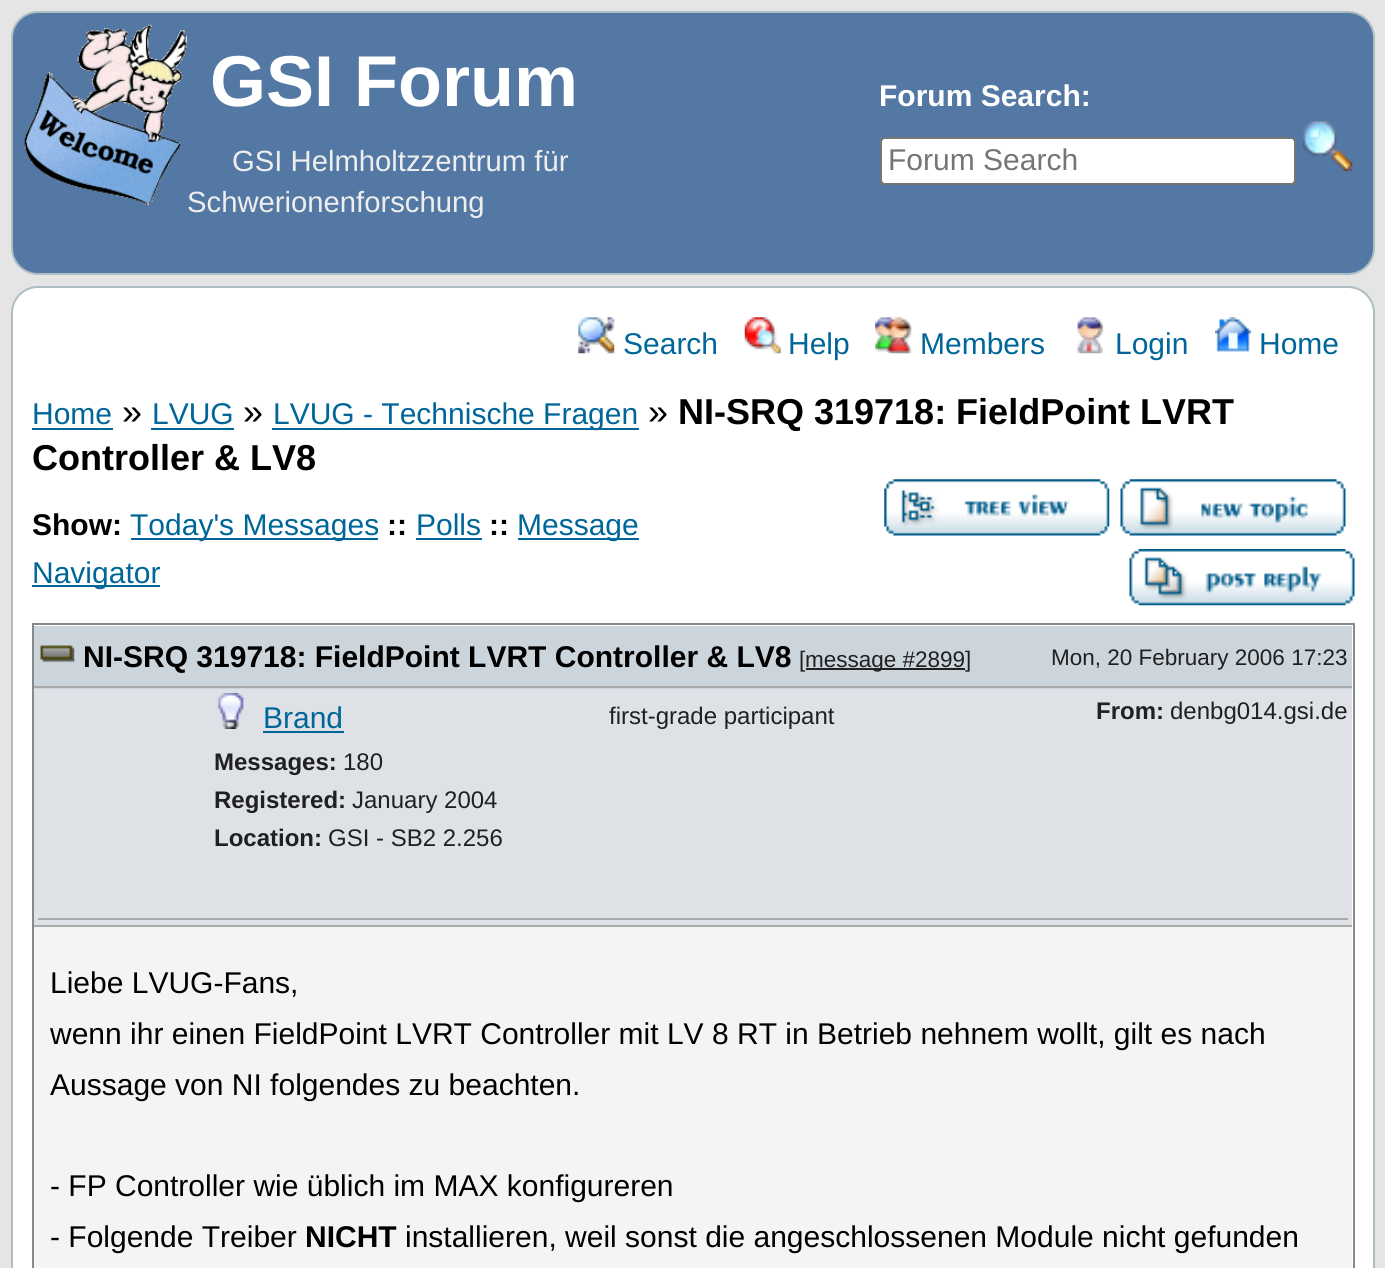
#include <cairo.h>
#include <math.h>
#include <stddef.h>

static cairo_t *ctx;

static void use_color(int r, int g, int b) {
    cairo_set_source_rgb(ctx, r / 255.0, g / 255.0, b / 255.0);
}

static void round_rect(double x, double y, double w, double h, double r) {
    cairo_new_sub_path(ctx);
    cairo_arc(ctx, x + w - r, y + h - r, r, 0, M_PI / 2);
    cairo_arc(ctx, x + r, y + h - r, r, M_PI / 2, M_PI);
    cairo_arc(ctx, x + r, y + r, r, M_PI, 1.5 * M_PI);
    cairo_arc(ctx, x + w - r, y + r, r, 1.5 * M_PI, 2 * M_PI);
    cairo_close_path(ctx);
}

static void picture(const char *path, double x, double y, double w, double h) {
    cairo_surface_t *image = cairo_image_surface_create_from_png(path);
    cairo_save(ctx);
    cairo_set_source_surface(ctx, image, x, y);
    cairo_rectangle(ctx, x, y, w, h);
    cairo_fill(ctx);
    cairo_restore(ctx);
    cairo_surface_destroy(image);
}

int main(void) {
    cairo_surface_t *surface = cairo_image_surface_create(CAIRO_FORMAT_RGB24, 1385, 1268);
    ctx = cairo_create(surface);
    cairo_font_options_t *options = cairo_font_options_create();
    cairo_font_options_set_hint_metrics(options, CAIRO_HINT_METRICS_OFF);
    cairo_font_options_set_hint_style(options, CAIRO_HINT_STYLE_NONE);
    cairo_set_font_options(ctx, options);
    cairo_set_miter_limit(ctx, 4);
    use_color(229, 229, 229);
    cairo_paint(ctx);
    use_color(84, 120, 164);
    round_rect(12, 12, 1362, 262, 26);
    cairo_fill_preserve(ctx);
    use_color(174, 189, 196);
    cairo_stroke(ctx);
    picture("img1.png", 24, 24, 163, 181);
    cairo_select_font_face(ctx, "Liberation Sans", CAIRO_FONT_SLANT_NORMAL, CAIRO_FONT_WEIGHT_BOLD);
    cairo_set_font_size(ctx, 72);
    use_color(255, 255, 255);
    cairo_move_to(ctx, 210, 106);
    cairo_show_text(ctx, "GSI Forum");
    cairo_set_font_size(ctx, 30);
    cairo_move_to(ctx, 879, 106);
    cairo_show_text(ctx, "Forum Search:");
    round_rect(881, 138, 414, 46, 4);
    cairo_fill_preserve(ctx);
    use_color(118, 118, 118);
    cairo_stroke(ctx);
    cairo_select_font_face(ctx, "Liberation Sans", CAIRO_FONT_SLANT_NORMAL, CAIRO_FONT_WEIGHT_NORMAL);
    use_color(117, 117, 117);
    cairo_move_to(ctx, 888, 170);
    cairo_show_text(ctx, "Forum Search");
    picture("img2.png", 1302, 121, 51, 50);
    cairo_set_font_size(ctx, 29.25);
    use_color(238, 238, 238);
    cairo_move_to(ctx, 232, 171);
    cairo_show_text(ctx, "GSI Helmholtzzentrum für");
    cairo_move_to(ctx, 187, 212);
    cairo_show_text(ctx, "Schwerionenforschung");
    use_color(255, 255, 255);
    round_rect(12, 287, 1362, 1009, 26);
    cairo_fill_preserve(ctx);
    use_color(174, 189, 196);
    cairo_stroke(ctx);
    picture("img3.png", 578, 317, 37, 37);
    cairo_set_font_size(ctx, 30);
    use_color(0, 102, 153);
    cairo_move_to(ctx, 623, 354);
    cairo_show_text(ctx, "Search");
    picture("img4.png", 744, 317, 37, 37);
    cairo_move_to(ctx, 788, 354);
    cairo_show_text(ctx, "Help");
    picture("img5.png", 875, 317, 37, 37);
    cairo_move_to(ctx, 920, 354);
    cairo_show_text(ctx, "Members");
    picture("img6.png", 1077, 317, 27, 37);
    cairo_move_to(ctx, 1115, 354);
    cairo_show_text(ctx, "Login");
    picture("img7.png", 1215, 317, 36, 35);
    cairo_move_to(ctx, 1259, 354);
    cairo_show_text(ctx, "Home");
    cairo_move_to(ctx, 32, 424);
    cairo_show_text(ctx, "Home");
    cairo_rectangle(ctx, 32, 428, 81, 2);
    cairo_fill(ctx);
    cairo_set_font_size(ctx, 36);
    use_color(0, 0, 0);
    cairo_move_to(ctx, 122, 424);
    cairo_show_text(ctx, "»");
    cairo_set_font_size(ctx, 30);
    use_color(0, 102, 153);
    cairo_move_to(ctx, 152, 424);
    cairo_show_text(ctx, "LVUG");
    cairo_rectangle(ctx, 151, 428, 83, 2);
    cairo_fill(ctx);
    cairo_set_font_size(ctx, 36);
    use_color(0, 0, 0);
    cairo_move_to(ctx, 243, 424);
    cairo_show_text(ctx, "»");
    use_color(0, 102, 153);
    cairo_rectangle(ctx, 272, 428, 367, 2);
    cairo_fill(ctx);
    cairo_set_font_size(ctx, 30);
    cairo_move_to(ctx, 273, 424);
    cairo_show_text(ctx, "LVUG - Technische Fragen");
    cairo_set_font_size(ctx, 36);
    use_color(0, 0, 0);
    cairo_move_to(ctx, 648, 424);
    cairo_show_text(ctx, "»");
    cairo_select_font_face(ctx, "Liberation Sans", CAIRO_FONT_SLANT_NORMAL, CAIRO_FONT_WEIGHT_BOLD);
    cairo_move_to(ctx, 678, 424);
    cairo_show_text(ctx, "NI-SRQ 319718: FieldPoint LVRT");
    cairo_move_to(ctx, 32, 470);
    cairo_show_text(ctx, "Controller & LV8");
    cairo_set_font_size(ctx, 30);
    cairo_move_to(ctx, 32, 535);
    cairo_show_text(ctx, "Show:");
    use_color(0, 102, 153);
    cairo_rectangle(ctx, 131, 538, 247, 2);
    cairo_fill(ctx);
    cairo_select_font_face(ctx, "Liberation Sans", CAIRO_FONT_SLANT_NORMAL, CAIRO_FONT_WEIGHT_NORMAL);
    cairo_move_to(ctx, 130, 535);
    cairo_show_text(ctx, "Today's Messages");
    cairo_select_font_face(ctx, "Liberation Sans", CAIRO_FONT_SLANT_NORMAL, CAIRO_FONT_WEIGHT_BOLD);
    use_color(0, 0, 0);
    cairo_move_to(ctx, 387, 535);
    cairo_show_text(ctx, "::");
    cairo_select_font_face(ctx, "Liberation Sans", CAIRO_FONT_SLANT_NORMAL, CAIRO_FONT_WEIGHT_NORMAL);
    use_color(0, 102, 153);
    cairo_move_to(ctx, 416, 535);
    cairo_show_text(ctx, "Polls");
    cairo_rectangle(ctx, 416, 538, 66, 2);
    cairo_fill(ctx);
    cairo_select_font_face(ctx, "Liberation Sans", CAIRO_FONT_SLANT_NORMAL, CAIRO_FONT_WEIGHT_BOLD);
    use_color(0, 0, 0);
    cairo_move_to(ctx, 489, 535);
    cairo_show_text(ctx, "::");
    use_color(0, 102, 153);
    cairo_rectangle(ctx, 518, 538, 121, 2);
    cairo_fill(ctx);
    cairo_select_font_face(ctx, "Liberation Sans", CAIRO_FONT_SLANT_NORMAL, CAIRO_FONT_WEIGHT_NORMAL);
    cairo_move_to(ctx, 517, 535);
    cairo_show_text(ctx, "Message");
    cairo_rectangle(ctx, 32, 585, 128, 2);
    cairo_fill(ctx);
    cairo_move_to(ctx, 32, 583);
    cairo_show_text(ctx, "Navigator");
    picture("img8.png", 884, 479, 226, 57);
    picture("img9.png", 1120, 479, 226, 57);
    picture("img10.png", 1129, 549, 226, 57);
    cairo_rectangle(ctx, 33, 624, 1321, 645);
    use_color(136, 136, 136);
    cairo_stroke(ctx);
    use_color(204, 212, 220);
    cairo_rectangle(ctx, 34, 626, 1318, 63);
    cairo_fill(ctx);
    use_color(170, 170, 170);
    cairo_rectangle(ctx, 34, 686, 1318, 2);
    cairo_fill(ctx);
    picture("img11.png", 40, 645, 35, 18);
    cairo_select_font_face(ctx, "Liberation Sans", CAIRO_FONT_SLANT_NORMAL, CAIRO_FONT_WEIGHT_BOLD);
    use_color(0, 0, 0);
    cairo_move_to(ctx, 83, 667);
    cairo_show_text(ctx, "NI-SRQ 319718: FieldPoint LVRT Controller & LV8");
    cairo_select_font_face(ctx, "Liberation Sans", CAIRO_FONT_SLANT_NORMAL, CAIRO_FONT_WEIGHT_NORMAL);
    cairo_set_font_size(ctx, 22.5);
    use_color(32, 32, 32);
    cairo_move_to(ctx, 799, 667);
    cairo_show_text(ctx, "[");
    cairo_rectangle(ctx, 806, 668, 159, 2);
    cairo_fill(ctx);
    cairo_move_to(ctx, 805, 667);
    cairo_show_text(ctx, "message #2899]");
    cairo_move_to(ctx, 1051, 665);
    cairo_show_text(ctx, "Mon, 20 February 2006 17:23");
    use_color(222, 226, 230);
    cairo_rectangle(ctx, 34, 689, 1318, 236);
    cairo_fill(ctx);
    use_color(170, 170, 170);
    cairo_rectangle(ctx, 34, 925, 1318, 2);
    cairo_fill(ctx);
    cairo_rectangle(ctx, 38, 918, 1310, 2);
    cairo_fill(ctx);
    picture("img12.png", 217, 693, 27, 36);
    cairo_set_font_size(ctx, 30);
    use_color(0, 102, 153);
    cairo_move_to(ctx, 263, 728);
    cairo_show_text(ctx, "Brand");
    cairo_rectangle(ctx, 263, 731, 81, 2);
    cairo_fill(ctx);
    cairo_select_font_face(ctx, "Liberation Sans", CAIRO_FONT_SLANT_NORMAL, CAIRO_FONT_WEIGHT_BOLD);
    cairo_set_font_size(ctx, 24);
    use_color(32, 32, 32);
    cairo_move_to(ctx, 214, 770);
    cairo_show_text(ctx, "Messages:");
    cairo_select_font_face(ctx, "Liberation Sans", CAIRO_FONT_SLANT_NORMAL, CAIRO_FONT_WEIGHT_NORMAL);
    cairo_move_to(ctx, 343, 770);
    cairo_show_text(ctx, "180");
    cairo_select_font_face(ctx, "Liberation Sans", CAIRO_FONT_SLANT_NORMAL, CAIRO_FONT_WEIGHT_BOLD);
    cairo_move_to(ctx, 214, 808);
    cairo_show_text(ctx, "Registered:");
    cairo_select_font_face(ctx, "Liberation Sans", CAIRO_FONT_SLANT_NORMAL, CAIRO_FONT_WEIGHT_NORMAL);
    cairo_move_to(ctx, 352, 808);
    cairo_show_text(ctx, "January 2004");
    cairo_select_font_face(ctx, "Liberation Sans", CAIRO_FONT_SLANT_NORMAL, CAIRO_FONT_WEIGHT_BOLD);
    cairo_move_to(ctx, 214, 846);
    cairo_show_text(ctx, "Location:");
    cairo_select_font_face(ctx, "Liberation Sans", CAIRO_FONT_SLANT_NORMAL, CAIRO_FONT_WEIGHT_NORMAL);
    cairo_move_to(ctx, 328, 846);
    cairo_show_text(ctx, "GSI - SB2 2.256");
    cairo_move_to(ctx, 609, 724);
    cairo_show_text(ctx, "first-grade participant");
    cairo_select_font_face(ctx, "Liberation Sans", CAIRO_FONT_SLANT_NORMAL, CAIRO_FONT_WEIGHT_BOLD);
    cairo_move_to(ctx, 1096, 719);
    cairo_show_text(ctx, "From:");
    cairo_select_font_face(ctx, "Liberation Sans", CAIRO_FONT_SLANT_NORMAL, CAIRO_FONT_WEIGHT_NORMAL);
    cairo_move_to(ctx, 1170, 719);
    cairo_show_text(ctx, "denbg014.gsi.de");
    use_color(244, 244, 244);
    cairo_rectangle(ctx, 34, 927, 1318, 341);
    cairo_fill(ctx);
    cairo_set_font_size(ctx, 30);
    use_color(0, 0, 0);
    cairo_move_to(ctx, 50, 993);
    cairo_show_text(ctx, "Liebe LVUG-Fans,");
    cairo_move_to(ctx, 50, 1044);
    cairo_show_text(ctx, "wenn ihr einen FieldPoint LVRT Controller mit LV 8 RT in Betrieb nehnem wollt, gilt es nach");
    cairo_move_to(ctx, 50, 1095);
    cairo_show_text(ctx, "Aussage von NI folgendes zu beachten.");
    cairo_move_to(ctx, 50, 1196);
    cairo_show_text(ctx, "- FP Controller wie üblich im MAX konfigureren");
    cairo_move_to(ctx, 50, 1247);
    cairo_show_text(ctx, "- Folgende Treiber");
    cairo_select_font_face(ctx, "Liberation Sans", CAIRO_FONT_SLANT_NORMAL, CAIRO_FONT_WEIGHT_BOLD);
    cairo_move_to(ctx, 305, 1247);
    cairo_show_text(ctx, "NICHT");
    cairo_select_font_face(ctx, "Liberation Sans", CAIRO_FONT_SLANT_NORMAL, CAIRO_FONT_WEIGHT_NORMAL);
    cairo_move_to(ctx, 405, 1247);
    cairo_show_text(ctx, "installieren, weil sonst die angeschlossenen Module nicht gefunden");
    cairo_surface_write_to_png(surface, "result.png");
    cairo_font_options_destroy(options);
    cairo_destroy(ctx);
    cairo_surface_destroy(surface);
    return 0;
}
